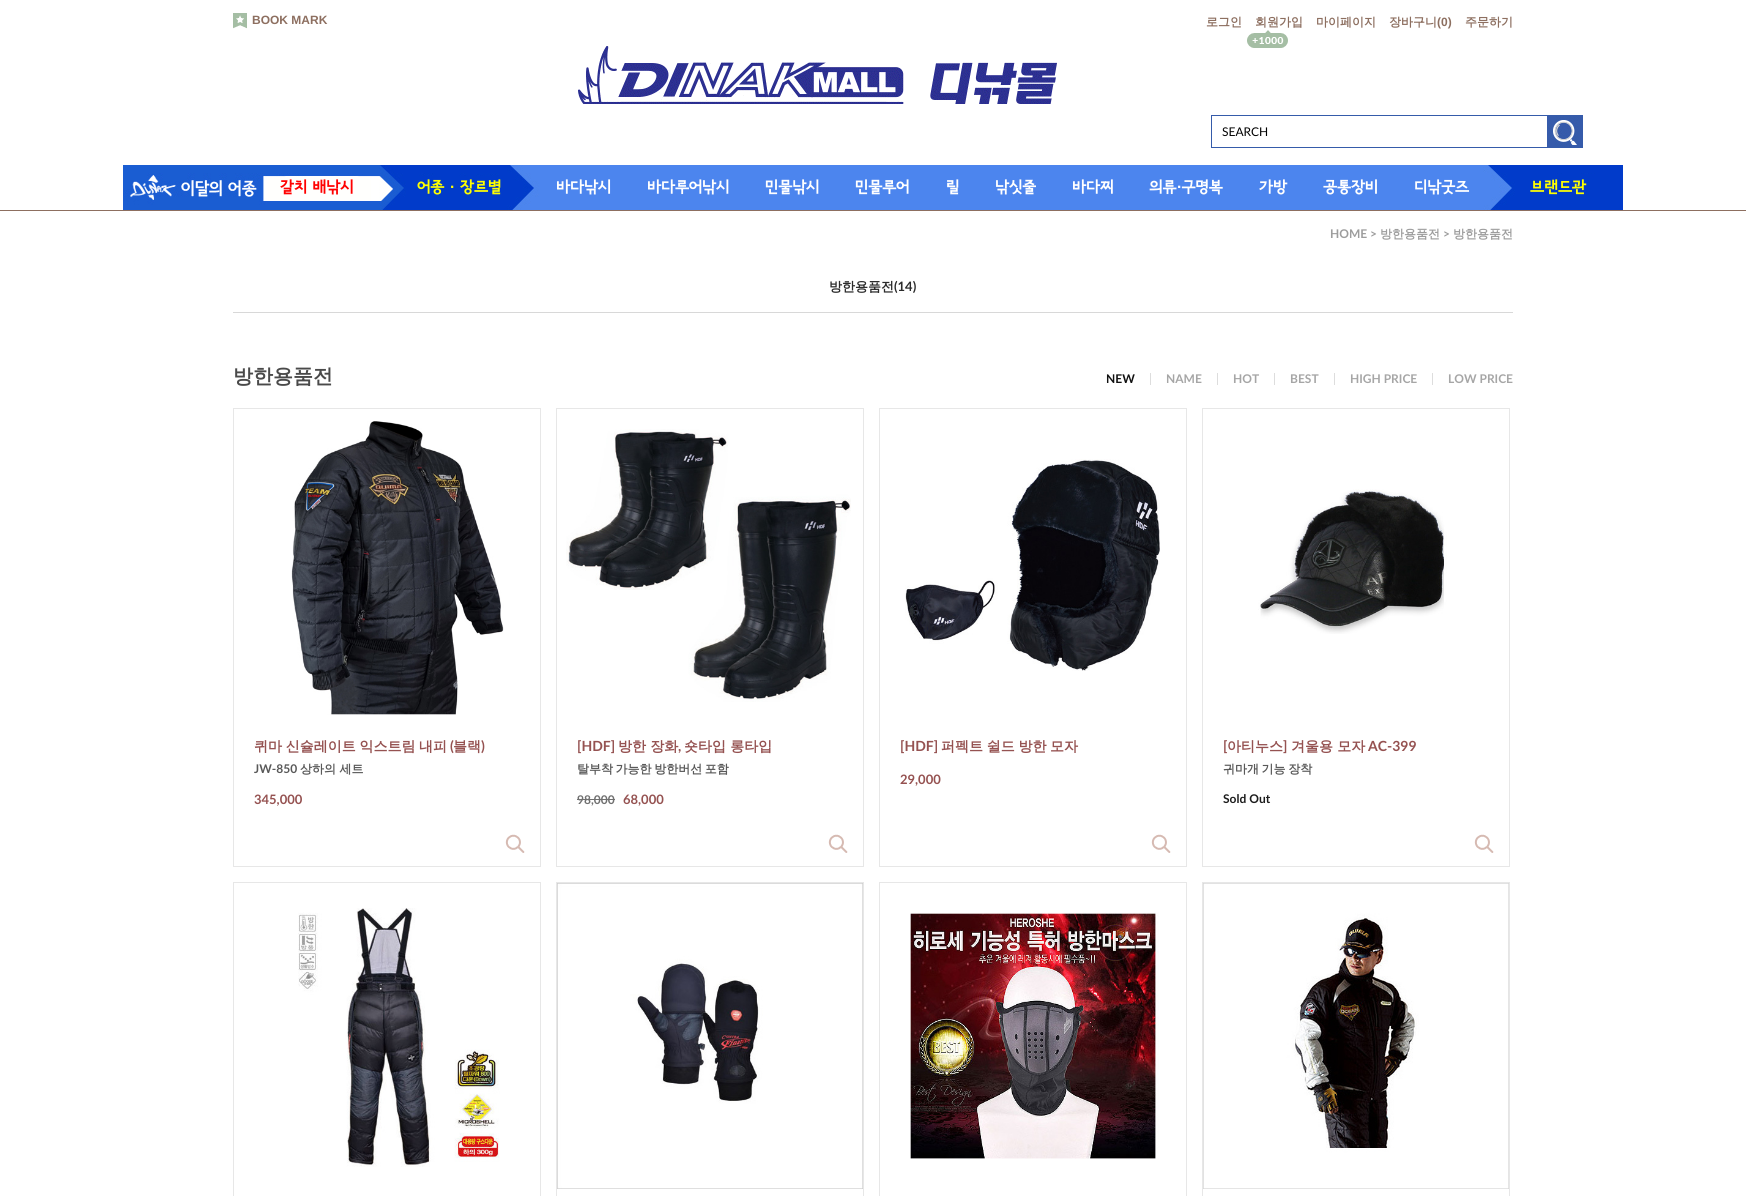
#include <cairo.h>
#include <math.h>
#include <stddef.h>

static cairo_t *ctx;

static void use_color(int r, int g, int b) {
    cairo_set_source_rgb(ctx, r / 255.0, g / 255.0, b / 255.0);
}

static void spaced_text(double x, double y, const char *s, double letter, double word) {
    cairo_move_to(ctx, x, y);
    while (*s) {
        char ch[5] = {0};
        int n = 0;
        do ch[n++] = *s++; while ((*s & 0xC0) == 0x80);
        cairo_show_text(ctx, ch);
        cairo_rel_move_to(ctx, letter + word * (*ch == ' '), 0);
    }
}

static void picture(const char *path, double x, double y, double w, double h) {
    cairo_surface_t *image = cairo_image_surface_create_from_png(path);
    cairo_save(ctx);
    cairo_set_source_surface(ctx, image, x, y);
    cairo_rectangle(ctx, x, y, w, h);
    cairo_fill(ctx);
    cairo_restore(ctx);
    cairo_surface_destroy(image);
}

int main(void) {
    cairo_surface_t *surface = cairo_image_surface_create(CAIRO_FORMAT_RGB24, 1746, 1196);
    ctx = cairo_create(surface);
    cairo_font_options_t *options = cairo_font_options_create();
    cairo_font_options_set_hint_metrics(options, CAIRO_HINT_METRICS_OFF);
    cairo_font_options_set_hint_style(options, CAIRO_HINT_STYLE_NONE);
    cairo_set_font_options(ctx, options);
    cairo_set_miter_limit(ctx, 4);
    use_color(255, 255, 255);
    cairo_paint(ctx);
    picture("img1.png", 233, 13, 14, 16);
    cairo_select_font_face(ctx, "Liberation Sans", CAIRO_FONT_SLANT_NORMAL, CAIRO_FONT_WEIGHT_BOLD);
    cairo_set_font_size(ctx, 12);
    use_color(141, 111, 96);
    cairo_move_to(ctx, 252, 24);
    cairo_show_text(ctx, "BOOK MARK");
    cairo_select_font_face(ctx, "WenQuanYi Zen Hei", CAIRO_FONT_SLANT_NORMAL, CAIRO_FONT_WEIGHT_BOLD);
    cairo_move_to(ctx, 1206, 26);
    cairo_show_text(ctx, "로그인");
    cairo_move_to(ctx, 1255, 26);
    cairo_show_text(ctx, "회원가입");
    picture("img2.png", 1247, 30, 41, 18);
    cairo_move_to(ctx, 1316, 26);
    cairo_show_text(ctx, "마이페이지");
    cairo_move_to(ctx, 1389, 26);
    cairo_show_text(ctx, "장바구니");
    cairo_select_font_face(ctx, "Liberation Sans", CAIRO_FONT_SLANT_NORMAL, CAIRO_FONT_WEIGHT_BOLD);
    cairo_move_to(ctx, 1437, 26);
    cairo_show_text(ctx, "(0)");
    cairo_select_font_face(ctx, "WenQuanYi Zen Hei", CAIRO_FONT_SLANT_NORMAL, CAIRO_FONT_WEIGHT_BOLD);
    cairo_move_to(ctx, 1465, 26);
    cairo_show_text(ctx, "주문하기");
    picture("img3.png", 578, 46, 479, 58);
    cairo_rectangle(ctx, 0, 210, 1746, 1);
    cairo_fill(ctx);
    picture("img4.png", 123, 165, 1500, 45);
    cairo_select_font_face(ctx, "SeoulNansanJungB", CAIRO_FONT_SLANT_NORMAL, CAIRO_FONT_WEIGHT_BOLD);
    cairo_set_font_size(ctx, 15.5);
    use_color(255, 0, 0);
    cairo_move_to(ctx, 280, 192);
    cairo_show_text(ctx, "갈치 배낚시");
    use_color(255, 255, 0);
    cairo_move_to(ctx, 417, 192);
    cairo_show_text(ctx, "어종");
    cairo_select_font_face(ctx, "Liberation Sans", CAIRO_FONT_SLANT_NORMAL, CAIRO_FONT_WEIGHT_BOLD);
    cairo_move_to(ctx, 450, 192);
    cairo_show_text(ctx, "·");
    cairo_select_font_face(ctx, "SeoulNansanJungB", CAIRO_FONT_SLANT_NORMAL, CAIRO_FONT_WEIGHT_BOLD);
    cairo_move_to(ctx, 460, 192);
    cairo_show_text(ctx, "장르별");
    use_color(255, 255, 255);
    cairo_move_to(ctx, 556, 192);
    cairo_show_text(ctx, "바다낚시");
    cairo_move_to(ctx, 647, 192);
    cairo_show_text(ctx, "바다루어낚시");
    cairo_move_to(ctx, 765, 192);
    cairo_show_text(ctx, "민물낚시");
    cairo_move_to(ctx, 855, 192);
    cairo_show_text(ctx, "민물루어");
    cairo_move_to(ctx, 946, 192);
    cairo_show_text(ctx, "릴");
    cairo_move_to(ctx, 995, 192);
    cairo_show_text(ctx, "낚싯줄");
    cairo_move_to(ctx, 1072, 192);
    cairo_show_text(ctx, "바다찌");
    cairo_move_to(ctx, 1149, 192);
    cairo_show_text(ctx, "의류 구명복");
    cairo_select_font_face(ctx, "Liberation Sans", CAIRO_FONT_SLANT_NORMAL, CAIRO_FONT_WEIGHT_BOLD);
    cairo_move_to(ctx, 1177, 192);
    cairo_show_text(ctx, "·");
    cairo_rectangle(ctx, 1211.5, 115.5, 371, 32);
    use_color(53, 91, 170);
    cairo_set_line_width(ctx, 1);
    cairo_stroke(ctx);
    cairo_select_font_face(ctx, "Lato", CAIRO_FONT_SLANT_NORMAL, CAIRO_FONT_WEIGHT_NORMAL);
    cairo_set_font_size(ctx, 12);
    use_color(0, 0, 0);
    cairo_move_to(ctx, 1222, 136);
    cairo_show_text(ctx, "SEARCH");
    picture("img5.png", 1547, 116, 35, 31);
    cairo_select_font_face(ctx, "SeoulNansanJungB", CAIRO_FONT_SLANT_NORMAL, CAIRO_FONT_WEIGHT_BOLD);
    cairo_set_font_size(ctx, 15.5);
    use_color(255, 255, 0);
    cairo_move_to(ctx, 1530, 192);
    cairo_show_text(ctx, "브랜드관");
    use_color(255, 255, 255);
    cairo_move_to(ctx, 1259, 192);
    cairo_show_text(ctx, "가방");
    cairo_move_to(ctx, 1323, 192);
    cairo_show_text(ctx, "공통장비");
    cairo_move_to(ctx, 1414, 192);
    cairo_show_text(ctx, "디낚굿즈");
    cairo_select_font_face(ctx, "Lato", CAIRO_FONT_SLANT_NORMAL, CAIRO_FONT_WEIGHT_BOLD);
    cairo_set_font_size(ctx, 12);
    use_color(157, 157, 157);
    cairo_move_to(ctx, 1330, 238);
    cairo_show_text(ctx, "HOME >");
    cairo_select_font_face(ctx, "WenQuanYi Zen Hei", CAIRO_FONT_SLANT_NORMAL, CAIRO_FONT_WEIGHT_BOLD);
    cairo_move_to(ctx, 1380, 238);
    cairo_show_text(ctx, "방한용품전");
    cairo_select_font_face(ctx, "Lato", CAIRO_FONT_SLANT_NORMAL, CAIRO_FONT_WEIGHT_BOLD);
    cairo_move_to(ctx, 1443, 238);
    cairo_show_text(ctx, ">");
    cairo_select_font_face(ctx, "WenQuanYi Zen Hei", CAIRO_FONT_SLANT_NORMAL, CAIRO_FONT_WEIGHT_BOLD);
    cairo_move_to(ctx, 1453, 238);
    cairo_show_text(ctx, "방한용품전");
    use_color(216, 216, 216);
    cairo_rectangle(ctx, 233, 312, 1280, 1);
    cairo_fill(ctx);
    cairo_set_font_size(ctx, 13);
    use_color(43, 43, 43);
    cairo_move_to(ctx, 829, 291);
    cairo_show_text(ctx, "방한용품전");
    cairo_select_font_face(ctx, "Lato", CAIRO_FONT_SLANT_NORMAL, CAIRO_FONT_WEIGHT_BOLD);
    cairo_move_to(ctx, 894, 291);
    cairo_show_text(ctx, "(14)");
    cairo_select_font_face(ctx, "WenQuanYi Zen Hei", CAIRO_FONT_SLANT_NORMAL, CAIRO_FONT_WEIGHT_BOLD);
    cairo_set_font_size(ctx, 20);
    use_color(74, 74, 74);
    cairo_move_to(ctx, 233, 383);
    cairo_show_text(ctx, "방한용품전");
    use_color(221, 221, 221);
    cairo_rectangle(ctx, 1150, 373, 1, 12);
    cairo_fill(ctx);
    cairo_select_font_face(ctx, "Lato", CAIRO_FONT_SLANT_NORMAL, CAIRO_FONT_WEIGHT_BOLD);
    cairo_set_font_size(ctx, 12);
    use_color(17, 17, 17);
    cairo_move_to(ctx, 1106, 383);
    cairo_show_text(ctx, "NEW");
    use_color(221, 221, 221);
    cairo_rectangle(ctx, 1217, 373, 1, 12);
    cairo_fill(ctx);
    use_color(166, 166, 166);
    cairo_move_to(ctx, 1166, 383);
    cairo_show_text(ctx, "NAME");
    use_color(221, 221, 221);
    cairo_rectangle(ctx, 1274, 373, 1, 12);
    cairo_fill(ctx);
    use_color(166, 166, 166);
    cairo_move_to(ctx, 1233, 383);
    cairo_show_text(ctx, "HOT");
    use_color(221, 221, 221);
    cairo_rectangle(ctx, 1334, 373, 1, 12);
    cairo_fill(ctx);
    use_color(166, 166, 166);
    cairo_move_to(ctx, 1290, 383);
    cairo_show_text(ctx, "BEST");
    use_color(221, 221, 221);
    cairo_rectangle(ctx, 1432, 373, 1, 12);
    cairo_fill(ctx);
    use_color(166, 166, 166);
    cairo_move_to(ctx, 1350, 383);
    cairo_show_text(ctx, "HIGH PRICE");
    cairo_move_to(ctx, 1448, 383);
    cairo_show_text(ctx, "LOW PRICE");
    cairo_rectangle(ctx, 233.5, 408.5, 307, 458);
    use_color(231, 231, 231);
    cairo_stroke(ctx);
    picture("img6.png", 291, 421, 213, 294);
    cairo_select_font_face(ctx, "WenQuanYi Zen Hei", CAIRO_FONT_SLANT_NORMAL, CAIRO_FONT_WEIGHT_BOLD);
    cairo_set_font_size(ctx, 14);
    use_color(149, 82, 81);
    spaced_text(254, 751, "퀴마 신슐레이트 익스트림 내피", 0, -0.5);
    cairo_select_font_face(ctx, "Lato", CAIRO_FONT_SLANT_NORMAL, CAIRO_FONT_WEIGHT_BOLD);
    cairo_move_to(ctx, 450, 751);
    cairo_show_text(ctx, "(");
    cairo_select_font_face(ctx, "WenQuanYi Zen Hei", CAIRO_FONT_SLANT_NORMAL, CAIRO_FONT_WEIGHT_BOLD);
    cairo_move_to(ctx, 453, 751);
    cairo_show_text(ctx, "블랙");
    cairo_select_font_face(ctx, "Lato", CAIRO_FONT_SLANT_NORMAL, CAIRO_FONT_WEIGHT_BOLD);
    cairo_move_to(ctx, 481, 751);
    cairo_show_text(ctx, ")");
    cairo_set_font_size(ctx, 12);
    use_color(89, 89, 89);
    cairo_move_to(ctx, 254, 773);
    cairo_show_text(ctx, "JW-850");
    cairo_select_font_face(ctx, "WenQuanYi Zen Hei", CAIRO_FONT_SLANT_NORMAL, CAIRO_FONT_WEIGHT_BOLD);
    cairo_move_to(ctx, 300, 773);
    cairo_show_text(ctx, "상하의 세트");
    cairo_select_font_face(ctx, "Lato", CAIRO_FONT_SLANT_NORMAL, CAIRO_FONT_WEIGHT_BOLD);
    cairo_set_font_size(ctx, 13);
    use_color(149, 82, 81);
    cairo_move_to(ctx, 254, 804);
    cairo_show_text(ctx, "345,000");
    picture("img7.png", 505, 834, 20, 19);
    cairo_rectangle(ctx, 556.5, 408.5, 307, 458);
    use_color(231, 231, 231);
    cairo_stroke(ctx);
    picture("img8.png", 566, 429, 285, 273);
    cairo_set_font_size(ctx, 14);
    use_color(149, 82, 81);
    cairo_move_to(ctx, 577, 751);
    cairo_show_text(ctx, "[HDF]");
    cairo_select_font_face(ctx, "WenQuanYi Zen Hei", CAIRO_FONT_SLANT_NORMAL, CAIRO_FONT_WEIGHT_BOLD);
    cairo_move_to(ctx, 618, 751);
    cairo_show_text(ctx, "방한 장화");
    cairo_select_font_face(ctx, "Lato", CAIRO_FONT_SLANT_NORMAL, CAIRO_FONT_WEIGHT_BOLD);
    cairo_move_to(ctx, 678, 751);
    cairo_show_text(ctx, ",");
    cairo_select_font_face(ctx, "WenQuanYi Zen Hei", CAIRO_FONT_SLANT_NORMAL, CAIRO_FONT_WEIGHT_BOLD);
    cairo_move_to(ctx, 684, 751);
    cairo_show_text(ctx, "숏타입 롱타입");
    cairo_set_font_size(ctx, 12);
    use_color(89, 89, 89);
    spaced_text(577, 773, "탈부착 가능한 방한버선 포함", 0, -1);
    cairo_select_font_face(ctx, "Lato", CAIRO_FONT_SLANT_NORMAL, CAIRO_FONT_WEIGHT_BOLD);
    use_color(112, 112, 112);
    cairo_move_to(ctx, 577, 804);
    cairo_show_text(ctx, "98,000");
    cairo_rectangle(ctx, 577, 799, 38, 1);
    cairo_fill(ctx);
    cairo_set_font_size(ctx, 13);
    use_color(149, 82, 81);
    cairo_move_to(ctx, 623, 804);
    cairo_show_text(ctx, "68,000");
    picture("img7.png", 828, 834, 20, 19);
    cairo_rectangle(ctx, 879.5, 408.5, 307, 458);
    use_color(231, 231, 231);
    cairo_stroke(ctx);
    picture("img9.png", 905, 459, 255, 212);
    cairo_set_font_size(ctx, 14);
    use_color(149, 82, 81);
    cairo_move_to(ctx, 900, 751);
    cairo_show_text(ctx, "[HDF]");
    cairo_select_font_face(ctx, "WenQuanYi Zen Hei", CAIRO_FONT_SLANT_NORMAL, CAIRO_FONT_WEIGHT_BOLD);
    spaced_text(941, 751, "퍼펙트 쉴드 방한 모자", 0, -0.5);
    cairo_select_font_face(ctx, "Lato", CAIRO_FONT_SLANT_NORMAL, CAIRO_FONT_WEIGHT_BOLD);
    cairo_set_font_size(ctx, 13);
    cairo_move_to(ctx, 900, 784);
    cairo_show_text(ctx, "29,000");
    picture("img7.png", 1151, 834, 20, 19);
    cairo_rectangle(ctx, 1202.5, 408.5, 307, 458);
    use_color(231, 231, 231);
    cairo_stroke(ctx);
    picture("img10.png", 1258, 489, 189, 145);
    cairo_set_font_size(ctx, 14);
    use_color(149, 82, 81);
    cairo_move_to(ctx, 1223, 751);
    cairo_show_text(ctx, "[");
    cairo_select_font_face(ctx, "WenQuanYi Zen Hei", CAIRO_FONT_SLANT_NORMAL, CAIRO_FONT_WEIGHT_BOLD);
    cairo_move_to(ctx, 1227, 751);
    cairo_show_text(ctx, "아티누스");
    cairo_select_font_face(ctx, "Lato", CAIRO_FONT_SLANT_NORMAL, CAIRO_FONT_WEIGHT_BOLD);
    cairo_move_to(ctx, 1283, 751);
    cairo_show_text(ctx, "]");
    cairo_select_font_face(ctx, "WenQuanYi Zen Hei", CAIRO_FONT_SLANT_NORMAL, CAIRO_FONT_WEIGHT_BOLD);
    cairo_move_to(ctx, 1291, 751);
    cairo_show_text(ctx, "겨울용 모자");
    cairo_select_font_face(ctx, "Lato", CAIRO_FONT_SLANT_NORMAL, CAIRO_FONT_WEIGHT_BOLD);
    cairo_move_to(ctx, 1368, 751);
    cairo_show_text(ctx, "AC-399");
    cairo_select_font_face(ctx, "WenQuanYi Zen Hei", CAIRO_FONT_SLANT_NORMAL, CAIRO_FONT_WEIGHT_BOLD);
    cairo_set_font_size(ctx, 12);
    use_color(89, 89, 89);
    spaced_text(1223, 773, "귀마개 기능 장착", 0, -1);
    cairo_select_font_face(ctx, "Lato", CAIRO_FONT_SLANT_NORMAL, CAIRO_FONT_WEIGHT_BOLD);
    use_color(28, 28, 28);
    cairo_move_to(ctx, 1223, 803);
    cairo_show_text(ctx, "Sold Out");
    picture("img7.png", 1474, 834, 20, 19);
    cairo_rectangle(ctx, 233.5, 882.5, 307, 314);
    use_color(231, 231, 231);
    cairo_stroke(ctx);
    picture("img11.png", 298, 908, 202, 259);
    cairo_rectangle(ctx, 556.5, 882.5, 307, 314);
    cairo_stroke(ctx);
    picture("img12.png", 557, 883, 306, 306);
    cairo_rectangle(ctx, 879.5, 882.5, 307, 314);
    cairo_stroke(ctx);
    picture("img13.png", 910, 912, 249, 247);
    cairo_rectangle(ctx, 1202.5, 882.5, 307, 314);
    cairo_stroke(ctx);
    picture("img14.png", 1203, 883, 306, 306);
    cairo_surface_write_to_png(surface, "result.png");
    cairo_font_options_destroy(options);
    cairo_destroy(ctx);
    cairo_surface_destroy(surface);
    return 0;
}
